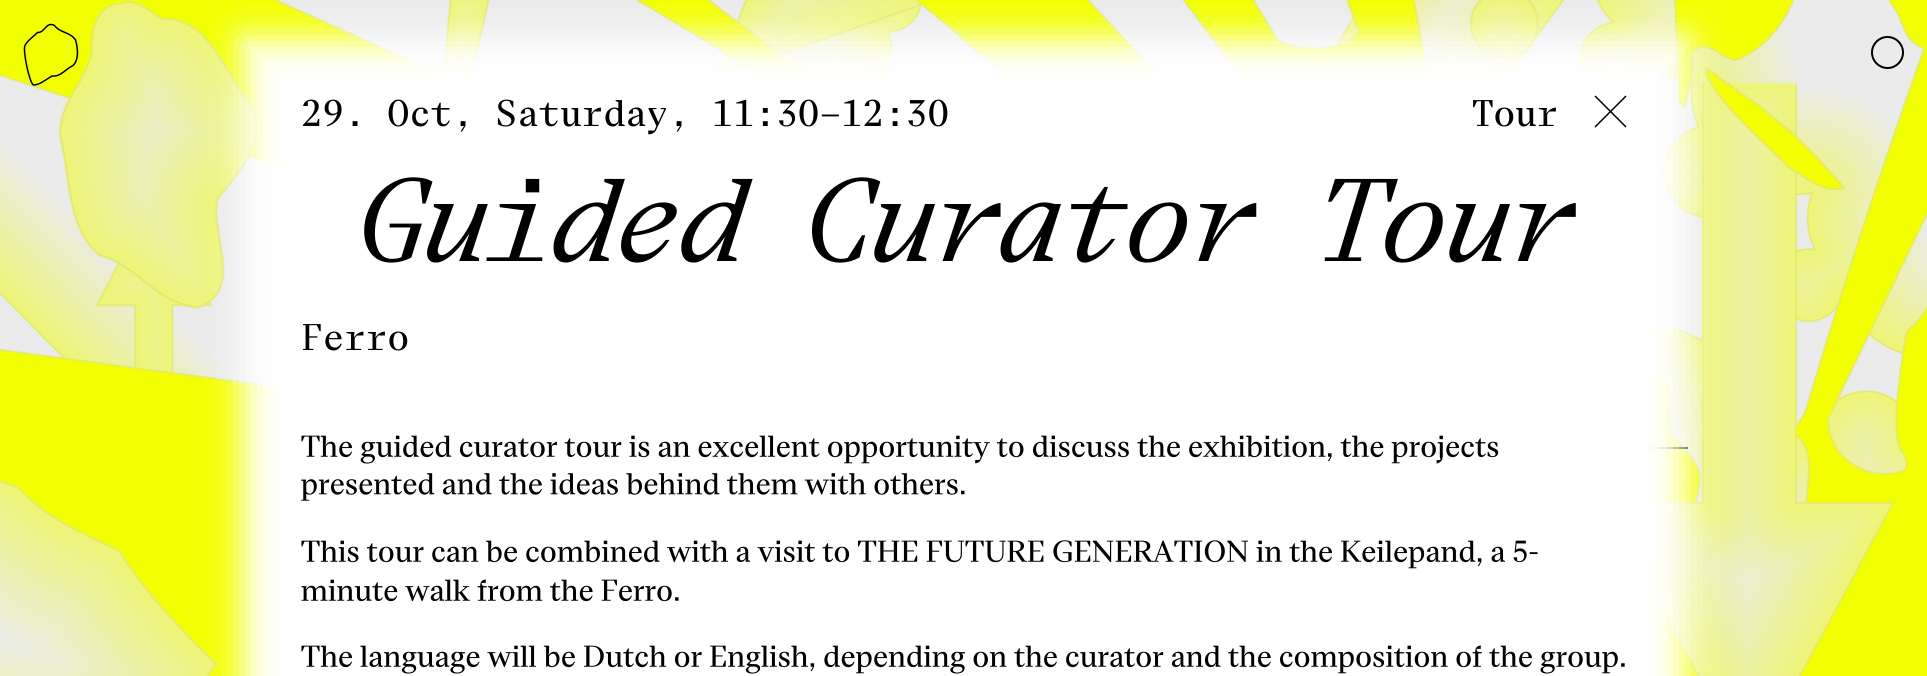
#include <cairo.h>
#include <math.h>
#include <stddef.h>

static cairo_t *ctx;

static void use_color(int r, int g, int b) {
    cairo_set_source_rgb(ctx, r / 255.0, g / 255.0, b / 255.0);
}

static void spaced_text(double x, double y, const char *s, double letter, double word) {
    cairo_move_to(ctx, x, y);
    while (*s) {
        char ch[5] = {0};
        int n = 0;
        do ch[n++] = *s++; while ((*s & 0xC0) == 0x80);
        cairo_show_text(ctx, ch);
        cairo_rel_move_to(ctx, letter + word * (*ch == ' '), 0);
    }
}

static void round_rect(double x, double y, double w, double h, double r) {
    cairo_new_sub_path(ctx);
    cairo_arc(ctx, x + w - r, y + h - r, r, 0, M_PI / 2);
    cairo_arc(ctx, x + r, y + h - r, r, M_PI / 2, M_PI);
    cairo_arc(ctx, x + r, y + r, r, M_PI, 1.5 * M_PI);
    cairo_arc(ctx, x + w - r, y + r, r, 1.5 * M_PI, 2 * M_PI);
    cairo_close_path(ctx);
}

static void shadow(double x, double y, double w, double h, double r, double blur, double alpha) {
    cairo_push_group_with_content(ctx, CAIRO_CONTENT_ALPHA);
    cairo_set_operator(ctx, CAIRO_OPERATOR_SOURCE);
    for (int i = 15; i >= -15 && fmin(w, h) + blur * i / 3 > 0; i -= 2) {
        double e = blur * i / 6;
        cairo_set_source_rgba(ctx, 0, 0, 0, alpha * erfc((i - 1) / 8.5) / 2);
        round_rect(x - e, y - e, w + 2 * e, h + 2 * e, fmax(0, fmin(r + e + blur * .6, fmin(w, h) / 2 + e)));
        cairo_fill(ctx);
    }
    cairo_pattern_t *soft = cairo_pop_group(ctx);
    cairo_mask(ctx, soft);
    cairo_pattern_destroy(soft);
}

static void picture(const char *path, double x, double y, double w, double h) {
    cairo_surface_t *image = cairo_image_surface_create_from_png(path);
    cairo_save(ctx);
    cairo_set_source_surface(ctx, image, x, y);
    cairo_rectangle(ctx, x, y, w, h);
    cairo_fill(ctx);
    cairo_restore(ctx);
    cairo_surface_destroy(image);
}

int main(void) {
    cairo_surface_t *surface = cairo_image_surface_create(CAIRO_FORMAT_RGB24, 1927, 676);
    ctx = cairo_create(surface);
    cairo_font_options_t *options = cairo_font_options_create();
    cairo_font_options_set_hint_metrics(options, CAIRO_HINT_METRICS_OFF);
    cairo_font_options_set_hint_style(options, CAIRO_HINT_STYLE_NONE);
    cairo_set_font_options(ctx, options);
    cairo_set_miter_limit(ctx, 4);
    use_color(235, 235, 235);
    cairo_paint(ctx);
    picture("img1.png", 0, 0, 1927, 504);
    picture("img2.png", 0, 0, 1927, 676);
    picture("img3.png", 0, 0, 1846, 676);
    cairo_new_path(ctx);
    cairo_move_to(ctx, 33.5, 85);
    cairo_curve_to(ctx, 29.5, 83.5, 22.5, 50, 25, 45.5);
    cairo_curve_to(ctx, 27.5, 40.5, 33, 37, 37.5, 32.5);
    cairo_curve_to(ctx, 45, 33, 46, 21, 54.5, 25.5);
    cairo_curve_to(ctx, 60, 33, 70.5, 32, 75.5, 40);
    cairo_curve_to(ctx, 78, 48.5, 79, 60, 73, 65.5);
    cairo_curve_to(ctx, 65, 69.5, 60.5, 77, 52, 76);
    cairo_curve_to(ctx, 46, 79.5, 39.5, 85, 33.5, 85);
    cairo_close_path(ctx);
    use_color(0, 0, 0);
    cairo_set_line_width(ctx, 1.5);
    cairo_stroke(ctx);
    cairo_arc(ctx, 1887.5, 52.5, 15.5, 0, 2 * M_PI);
    cairo_set_line_width(ctx, 2);
    cairo_stroke(ctx);
    cairo_rectangle(ctx, 1641, 447, 47, 2);
    cairo_fill(ctx);
    cairo_save(ctx);
    cairo_rectangle(ctx, 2, 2, 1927, 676);
    cairo_clip(ctx);
    use_color(255, 255, 255);
    shadow(242, 38, 1446, 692, 0, 18, 1);
    cairo_restore(ctx);
    cairo_select_font_face(ctx, "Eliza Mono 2", CAIRO_FONT_SLANT_NORMAL, CAIRO_FONT_WEIGHT_NORMAL);
    cairo_set_font_size(ctx, 36);
    cairo_move_to(ctx, 301, 126);
    cairo_show_text(ctx, "29. Oct, Saturday, 11:30–12:30");
    cairo_move_to(ctx, 1472, 126);
    cairo_show_text(ctx, "Tour");
    cairo_select_font_face(ctx, "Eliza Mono", CAIRO_FONT_SLANT_NORMAL, CAIRO_FONT_WEIGHT_NORMAL);
    cairo_set_font_size(ctx, 114);
    spaced_text(357, 261, "Guided Curator Tour", -4.5, 0);
    cairo_select_font_face(ctx, "Eliza Mono 2", CAIRO_FONT_SLANT_NORMAL, CAIRO_FONT_WEIGHT_NORMAL);
    cairo_set_font_size(ctx, 36);
    cairo_move_to(ctx, 301, 350);
    cairo_show_text(ctx, "Ferro");
    picture("img4.png", 301, 435, 1198, 29);
    picture("img5.png", 301, 473, 664, 28);
    picture("img6.png", 301, 540, 1237, 29);
    picture("img7.png", 301, 579, 378, 23);
    picture("img8.png", 301, 645, 1324, 29);
    cairo_new_path(ctx);
    cairo_move_to(ctx, 1595, 96);
    cairo_line_to(ctx, 1626, 127);
    cairo_move_to(ctx, 1595, 127);
    cairo_line_to(ctx, 1626, 96);
    cairo_set_line_width(ctx, 1.5);
    cairo_stroke(ctx);
    cairo_surface_write_to_png(surface, "result.png");
    cairo_font_options_destroy(options);
    cairo_destroy(ctx);
    cairo_surface_destroy(surface);
    return 0;
}
